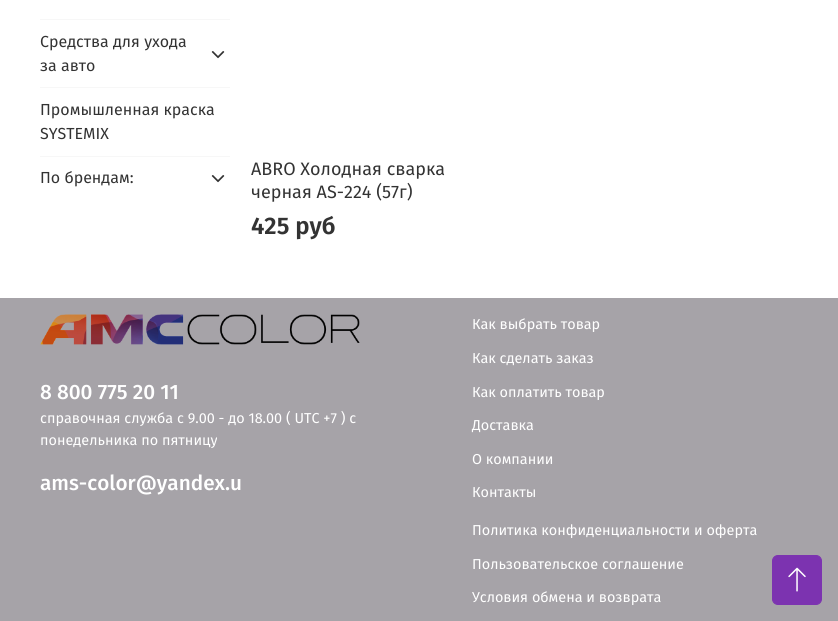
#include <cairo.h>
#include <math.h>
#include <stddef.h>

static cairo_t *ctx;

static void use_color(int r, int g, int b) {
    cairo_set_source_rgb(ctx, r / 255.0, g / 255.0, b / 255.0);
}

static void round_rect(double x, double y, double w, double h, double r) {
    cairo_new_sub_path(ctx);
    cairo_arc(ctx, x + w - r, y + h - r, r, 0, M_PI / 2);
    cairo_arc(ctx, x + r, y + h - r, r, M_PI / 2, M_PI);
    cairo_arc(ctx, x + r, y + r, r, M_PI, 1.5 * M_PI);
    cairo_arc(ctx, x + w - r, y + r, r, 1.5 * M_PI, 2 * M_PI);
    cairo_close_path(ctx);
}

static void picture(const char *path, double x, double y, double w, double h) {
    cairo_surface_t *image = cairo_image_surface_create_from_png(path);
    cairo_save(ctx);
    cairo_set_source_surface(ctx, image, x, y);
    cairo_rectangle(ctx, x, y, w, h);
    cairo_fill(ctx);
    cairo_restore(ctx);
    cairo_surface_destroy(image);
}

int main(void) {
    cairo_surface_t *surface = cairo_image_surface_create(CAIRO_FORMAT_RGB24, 838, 621);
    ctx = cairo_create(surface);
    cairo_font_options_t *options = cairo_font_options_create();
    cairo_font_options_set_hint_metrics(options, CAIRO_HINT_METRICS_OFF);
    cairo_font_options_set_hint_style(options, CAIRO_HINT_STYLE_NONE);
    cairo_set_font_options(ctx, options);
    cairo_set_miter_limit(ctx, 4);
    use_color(255, 255, 255);
    cairo_paint(ctx);
    use_color(247, 247, 247);
    cairo_rectangle(ctx, 40, 19, 190, 1);
    cairo_fill(ctx);
    cairo_rectangle(ctx, 40, 87, 190, 1);
    cairo_fill(ctx);
    cairo_select_font_face(ctx, "Fira Sans", CAIRO_FONT_SLANT_NORMAL, CAIRO_FONT_WEIGHT_NORMAL);
    cairo_set_font_size(ctx, 16);
    use_color(51, 51, 51);
    cairo_move_to(ctx, 40, 47);
    cairo_show_text(ctx, "Средства для ухода");
    cairo_move_to(ctx, 40, 71);
    cairo_show_text(ctx, "за авто");
    picture("img1.png", 211, 51, 14, 8);
    use_color(247, 247, 247);
    cairo_rectangle(ctx, 40, 156, 190, 1);
    cairo_fill(ctx);
    use_color(51, 51, 51);
    cairo_move_to(ctx, 40, 115);
    cairo_show_text(ctx, "Промышленная краска");
    cairo_move_to(ctx, 40, 139);
    cairo_show_text(ctx, "SYSTEMIX");
    cairo_move_to(ctx, 40, 183);
    cairo_show_text(ctx, "По брендам:");
    picture("img1.png", 211, 175, 14, 8);
    cairo_set_font_size(ctx, 18);
    cairo_move_to(ctx, 251, 175);
    cairo_show_text(ctx, "ABRO Холодная сварка");
    cairo_move_to(ctx, 251, 198);
    cairo_show_text(ctx, "черная AS-224 (57г)");
    cairo_select_font_face(ctx, "Fira Sans SemiBold", CAIRO_FONT_SLANT_NORMAL, CAIRO_FONT_WEIGHT_NORMAL);
    cairo_set_font_size(ctx, 24);
    cairo_move_to(ctx, 251, 234);
    cairo_show_text(ctx, "425 руб");
    use_color(166, 163, 168);
    cairo_rectangle(ctx, 0, 298, 838, 323);
    cairo_fill(ctx);
    picture("img2.png", 40, 314, 320, 31);
    cairo_select_font_face(ctx, "Fira Sans Medium", CAIRO_FONT_SLANT_NORMAL, CAIRO_FONT_WEIGHT_NORMAL);
    cairo_set_font_size(ctx, 20.75);
    use_color(255, 255, 255);
    cairo_move_to(ctx, 40, 399);
    cairo_show_text(ctx, "8 800 775 20 11");
    cairo_select_font_face(ctx, "Fira Sans", CAIRO_FONT_SLANT_NORMAL, CAIRO_FONT_WEIGHT_NORMAL);
    cairo_set_font_size(ctx, 14.4);
    cairo_move_to(ctx, 40, 423);
    cairo_show_text(ctx, "справочная служба с 9.00 - до 18.00 ( UTC +7 ) с");
    cairo_move_to(ctx, 40, 445);
    cairo_show_text(ctx, "понедельника по пятницу");
    cairo_select_font_face(ctx, "Fira Sans Medium", CAIRO_FONT_SLANT_NORMAL, CAIRO_FONT_WEIGHT_NORMAL);
    cairo_set_font_size(ctx, 20.75);
    cairo_move_to(ctx, 40, 490);
    cairo_show_text(ctx, "ams-color@yandex.u");
    cairo_select_font_face(ctx, "Fira Sans", CAIRO_FONT_SLANT_NORMAL, CAIRO_FONT_WEIGHT_NORMAL);
    cairo_set_font_size(ctx, 14.4);
    cairo_move_to(ctx, 472, 329);
    cairo_show_text(ctx, "Как выбрать товар");
    cairo_move_to(ctx, 472, 363);
    cairo_show_text(ctx, "Как сделать заказ");
    cairo_move_to(ctx, 472, 397);
    cairo_show_text(ctx, "Как оплатить товар");
    cairo_move_to(ctx, 472, 430);
    cairo_show_text(ctx, "Доставка");
    cairo_move_to(ctx, 472, 464);
    cairo_show_text(ctx, "О компании");
    cairo_move_to(ctx, 472, 497);
    cairo_show_text(ctx, "Контакты");
    cairo_move_to(ctx, 472, 535);
    cairo_show_text(ctx, "Политика конфиденциальности и оферта");
    cairo_move_to(ctx, 472, 569);
    cairo_show_text(ctx, "Пользовательское соглашение");
    cairo_move_to(ctx, 472, 602);
    cairo_show_text(ctx, "Условия обмена и возврата");
    use_color(124, 51, 176);
    round_rect(772.5, 555.5, 49, 49, 5.5);
    cairo_fill_preserve(ctx);
    cairo_set_line_width(ctx, 1);
    cairo_stroke(ctx);
    picture("img3.png", 788, 567, 18, 25);
    cairo_surface_write_to_png(surface, "result.png");
    cairo_font_options_destroy(options);
    cairo_destroy(ctx);
    cairo_surface_destroy(surface);
    return 0;
}
